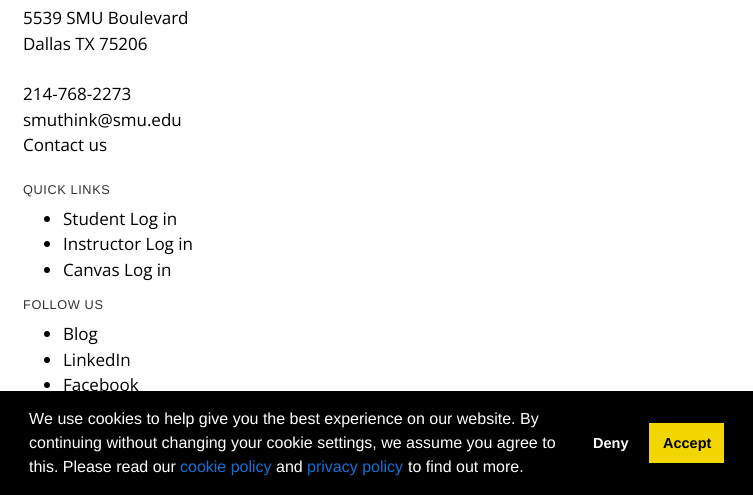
#include <cairo.h>
#include <math.h>
#include <stddef.h>

static cairo_t *ctx;

static void use_color(int r, int g, int b) {
    cairo_set_source_rgb(ctx, r / 255.0, g / 255.0, b / 255.0);
}

static void spaced_text(double x, double y, const char *s, double letter, double word) {
    cairo_move_to(ctx, x, y);
    while (*s) {
        char ch[5] = {0};
        int n = 0;
        do ch[n++] = *s++; while ((*s & 0xC0) == 0x80);
        cairo_show_text(ctx, ch);
        cairo_rel_move_to(ctx, letter + word * (*ch == ' '), 0);
    }
}

int main(void) {
    cairo_surface_t *surface = cairo_image_surface_create(CAIRO_FORMAT_RGB24, 753, 495);
    ctx = cairo_create(surface);
    cairo_font_options_t *options = cairo_font_options_create();
    cairo_font_options_set_hint_metrics(options, CAIRO_HINT_METRICS_OFF);
    cairo_font_options_set_hint_style(options, CAIRO_HINT_STYLE_NONE);
    cairo_set_font_options(ctx, options);
    cairo_set_miter_limit(ctx, 4);
    use_color(255, 255, 255);
    cairo_paint(ctx);
    cairo_select_font_face(ctx, "Open Sans", CAIRO_FONT_SLANT_NORMAL, CAIRO_FONT_WEIGHT_NORMAL);
    cairo_set_font_size(ctx, 17);
    use_color(0, 0, 0);
    cairo_move_to(ctx, 23, 24);
    cairo_show_text(ctx, "5539 SMU Boulevard");
    cairo_move_to(ctx, 23, 50);
    cairo_show_text(ctx, "Dallas TX 75206");
    cairo_move_to(ctx, 23, 100);
    cairo_show_text(ctx, "214-768-2273");
    cairo_move_to(ctx, 23, 126);
    cairo_show_text(ctx, "smuthink@smu.edu");
    cairo_move_to(ctx, 23, 151);
    cairo_show_text(ctx, "Contact us");
    cairo_select_font_face(ctx, "Liberation Sans", CAIRO_FONT_SLANT_NORMAL, CAIRO_FONT_WEIGHT_NORMAL);
    cairo_set_font_size(ctx, 12.75);
    use_color(51, 51, 51);
    spaced_text(23, 194, "QUICK LINKS", 0.6, 0);
    use_color(0, 0, 0);
    cairo_new_path(ctx);
    cairo_arc(ctx, 47, 219, 3, 0, 2 * M_PI);
    cairo_fill(ctx);
    cairo_select_font_face(ctx, "Open Sans", CAIRO_FONT_SLANT_NORMAL, CAIRO_FONT_WEIGHT_NORMAL);
    cairo_set_font_size(ctx, 17);
    cairo_move_to(ctx, 63, 225);
    cairo_show_text(ctx, "Student Log in");
    cairo_new_path(ctx);
    cairo_arc(ctx, 47, 244, 3, 0, 2 * M_PI);
    cairo_fill(ctx);
    cairo_move_to(ctx, 63, 250);
    cairo_show_text(ctx, "Instructor Log in");
    cairo_new_path(ctx);
    cairo_arc(ctx, 47, 270, 3, 0, 2 * M_PI);
    cairo_fill(ctx);
    cairo_move_to(ctx, 63, 276);
    cairo_show_text(ctx, "Canvas Log in");
    cairo_select_font_face(ctx, "Liberation Sans", CAIRO_FONT_SLANT_NORMAL, CAIRO_FONT_WEIGHT_NORMAL);
    cairo_set_font_size(ctx, 12.75);
    use_color(51, 51, 51);
    spaced_text(23, 309, "FOLLOW US", 0.6, 0);
    use_color(0, 0, 0);
    cairo_new_path(ctx);
    cairo_arc(ctx, 47, 334, 3, 0, 2 * M_PI);
    cairo_fill(ctx);
    cairo_select_font_face(ctx, "Open Sans", CAIRO_FONT_SLANT_NORMAL, CAIRO_FONT_WEIGHT_NORMAL);
    cairo_set_font_size(ctx, 17);
    cairo_move_to(ctx, 63, 340);
    cairo_show_text(ctx, "Blog");
    cairo_new_path(ctx);
    cairo_arc(ctx, 47, 360, 3, 0, 2 * M_PI);
    cairo_fill(ctx);
    cairo_move_to(ctx, 63, 366);
    cairo_show_text(ctx, "LinkedIn");
    cairo_new_path(ctx);
    cairo_arc(ctx, 47, 385, 3, 0, 2 * M_PI);
    cairo_fill(ctx);
    cairo_move_to(ctx, 63, 391);
    cairo_show_text(ctx, "Facebook");
    cairo_rectangle(ctx, 0, 391, 753, 104);
    cairo_fill(ctx);
    cairo_select_font_face(ctx, "Liberation Sans", CAIRO_FONT_SLANT_NORMAL, CAIRO_FONT_WEIGHT_NORMAL);
    cairo_set_font_size(ctx, 16);
    use_color(255, 255, 255);
    cairo_move_to(ctx, 29, 424);
    cairo_show_text(ctx, "We use cookies to help give you the best experience on our website. By");
    cairo_move_to(ctx, 29, 448);
    cairo_show_text(ctx, "continuing without changing your cookie settings, we assume you agree to");
    cairo_move_to(ctx, 29, 472);
    cairo_show_text(ctx, "this. Please read our");
    use_color(17, 111, 214);
    cairo_move_to(ctx, 180, 472);
    cairo_show_text(ctx, "cookie policy");
    use_color(255, 255, 255);
    cairo_move_to(ctx, 276, 472);
    cairo_show_text(ctx, "and");
    use_color(17, 111, 214);
    cairo_move_to(ctx, 307, 472);
    cairo_show_text(ctx, "privacy policy");
    use_color(255, 255, 255);
    cairo_move_to(ctx, 408, 472);
    cairo_show_text(ctx, "to find out more.");
    cairo_select_font_face(ctx, "Liberation Sans", CAIRO_FONT_SLANT_NORMAL, CAIRO_FONT_WEIGHT_BOLD);
    cairo_set_font_size(ctx, 14.5);
    cairo_move_to(ctx, 593, 448);
    cairo_show_text(ctx, "Deny");
    use_color(241, 214, 0);
    cairo_rectangle(ctx, 649, 423, 75, 40);
    cairo_fill(ctx);
    use_color(0, 0, 0);
    cairo_move_to(ctx, 663, 448);
    cairo_show_text(ctx, "Accept");
    cairo_surface_write_to_png(surface, "result.png");
    cairo_font_options_destroy(options);
    cairo_destroy(ctx);
    cairo_surface_destroy(surface);
    return 0;
}
